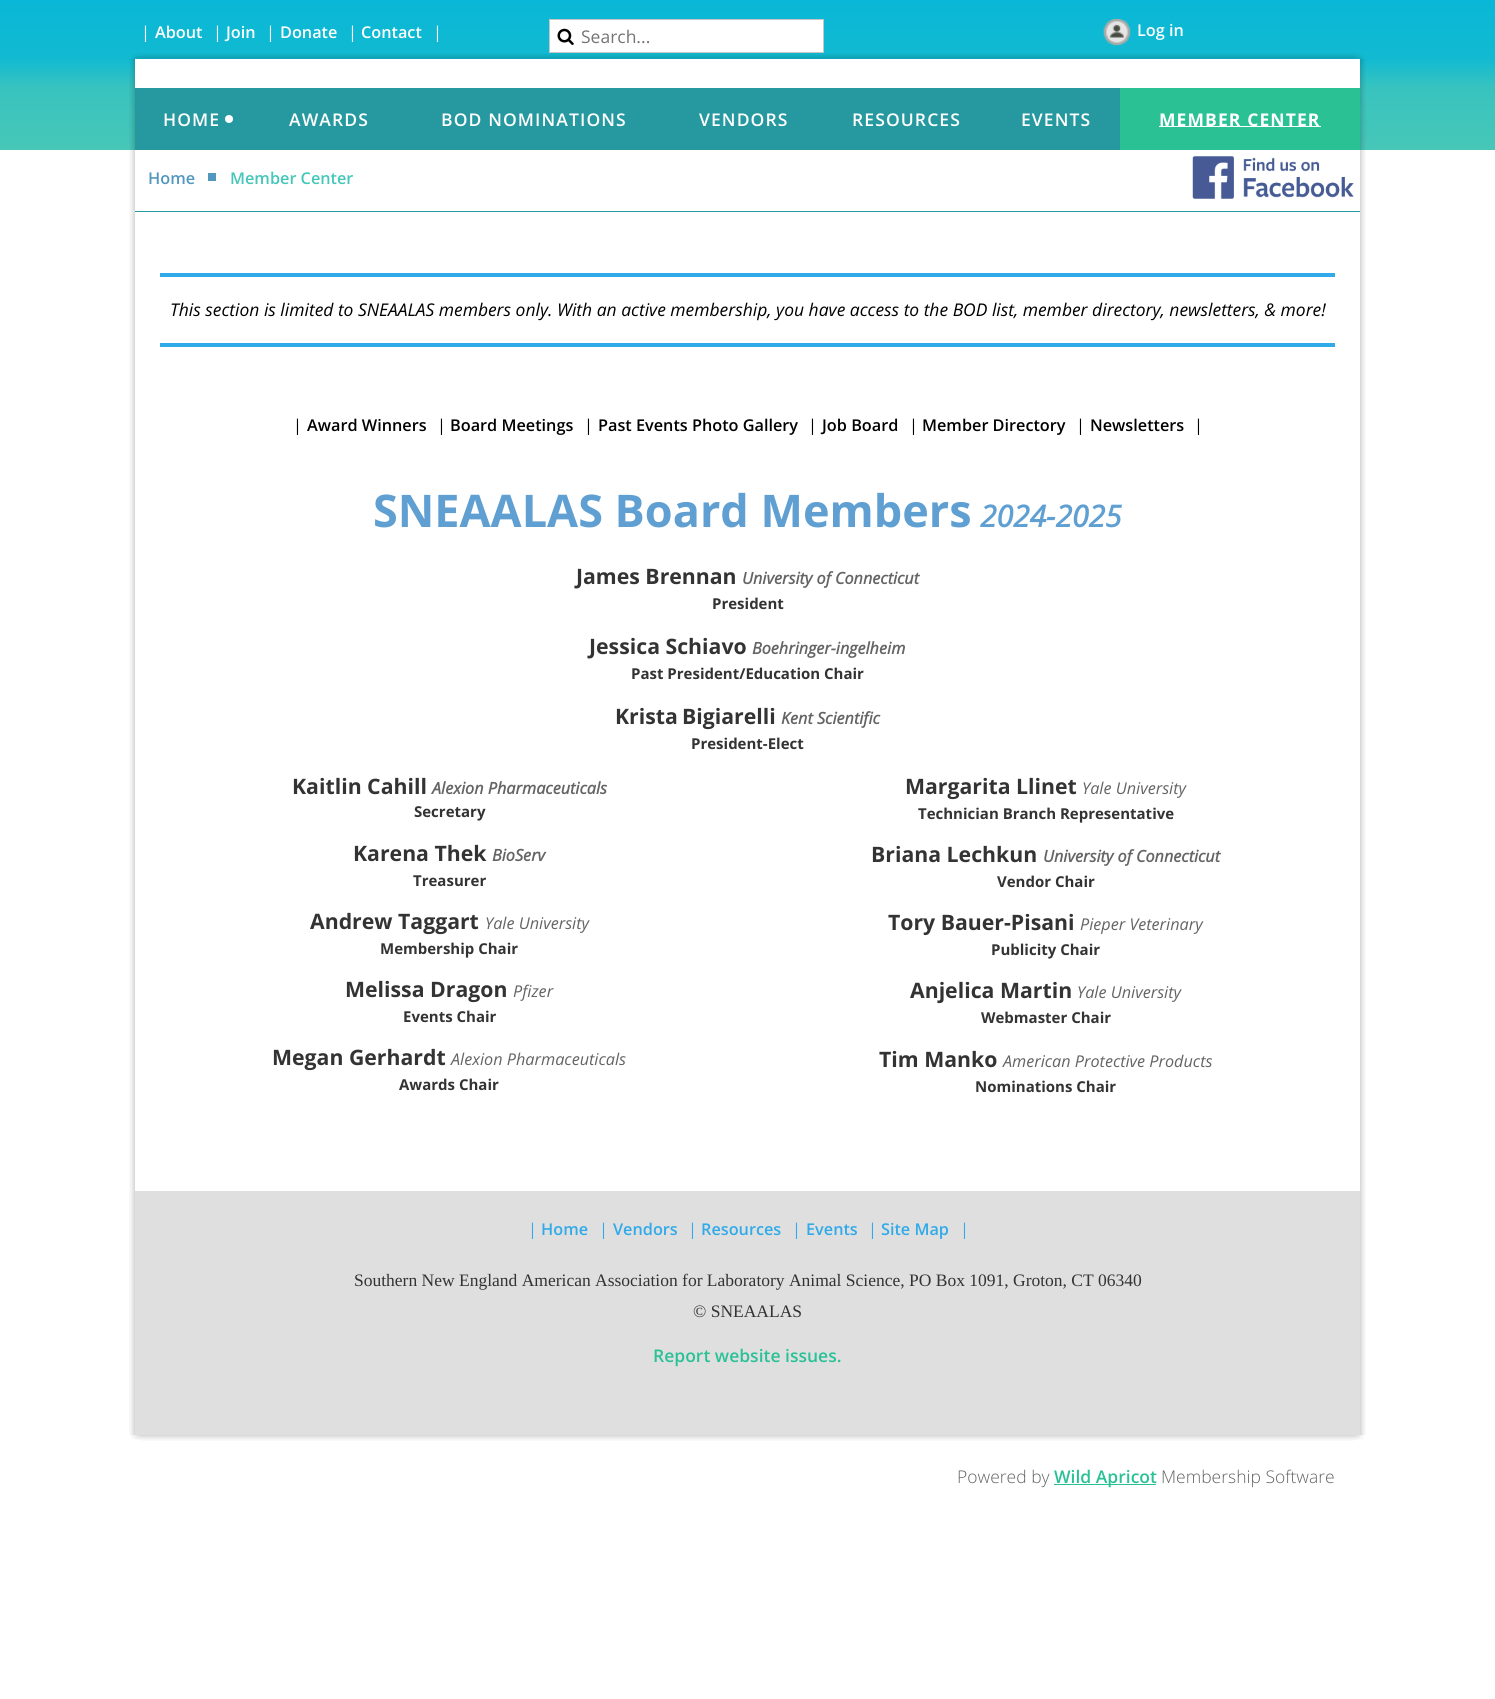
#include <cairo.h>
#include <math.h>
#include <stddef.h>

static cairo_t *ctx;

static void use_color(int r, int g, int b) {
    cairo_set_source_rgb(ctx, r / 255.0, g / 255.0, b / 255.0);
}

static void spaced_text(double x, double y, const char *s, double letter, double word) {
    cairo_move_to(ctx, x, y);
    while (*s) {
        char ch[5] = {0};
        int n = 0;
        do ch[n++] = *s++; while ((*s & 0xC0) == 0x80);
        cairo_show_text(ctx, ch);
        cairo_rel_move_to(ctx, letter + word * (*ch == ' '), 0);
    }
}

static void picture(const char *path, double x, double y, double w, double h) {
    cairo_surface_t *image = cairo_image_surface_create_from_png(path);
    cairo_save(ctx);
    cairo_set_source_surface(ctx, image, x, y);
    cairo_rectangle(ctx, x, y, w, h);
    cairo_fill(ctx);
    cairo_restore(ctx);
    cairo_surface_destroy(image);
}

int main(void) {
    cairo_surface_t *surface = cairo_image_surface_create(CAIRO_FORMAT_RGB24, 1495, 1699);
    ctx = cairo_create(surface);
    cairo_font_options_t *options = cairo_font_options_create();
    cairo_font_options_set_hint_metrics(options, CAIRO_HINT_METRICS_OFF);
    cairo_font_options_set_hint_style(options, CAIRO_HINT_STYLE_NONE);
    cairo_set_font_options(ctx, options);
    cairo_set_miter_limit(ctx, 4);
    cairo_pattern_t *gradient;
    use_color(255, 255, 255);
    cairo_paint(ctx);
    gradient = cairo_pattern_create_linear(748, 0, 748, 59);
    cairo_pattern_add_color_stop_rgba(gradient, 0, 0.035, 0.718, 0.839, 1);
    cairo_pattern_add_color_stop_rgba(gradient, 1, 0.071, 0.729, 0.82, 1);
    cairo_set_source(ctx, gradient);
    cairo_pattern_destroy(gradient);
    cairo_rectangle(ctx, 0, 0, 1495, 59);
    cairo_fill(ctx);
    cairo_select_font_face(ctx, "Open Sans", CAIRO_FONT_SLANT_NORMAL, CAIRO_FONT_WEIGHT_NORMAL);
    cairo_set_font_size(ctx, 16.25);
    use_color(255, 255, 255);
    cairo_move_to(ctx, 141, 38);
    cairo_show_text(ctx, "|");
    cairo_select_font_face(ctx, "Open Sans SemiBold", CAIRO_FONT_SLANT_NORMAL, CAIRO_FONT_WEIGHT_NORMAL);
    cairo_move_to(ctx, 155, 38);
    cairo_show_text(ctx, "About");
    cairo_select_font_face(ctx, "Open Sans", CAIRO_FONT_SLANT_NORMAL, CAIRO_FONT_WEIGHT_NORMAL);
    cairo_move_to(ctx, 213, 38);
    cairo_show_text(ctx, "|");
    cairo_select_font_face(ctx, "Open Sans SemiBold", CAIRO_FONT_SLANT_NORMAL, CAIRO_FONT_WEIGHT_NORMAL);
    cairo_move_to(ctx, 226, 38);
    cairo_show_text(ctx, "Join");
    cairo_select_font_face(ctx, "Open Sans", CAIRO_FONT_SLANT_NORMAL, CAIRO_FONT_WEIGHT_NORMAL);
    cairo_move_to(ctx, 266, 38);
    cairo_show_text(ctx, "|");
    cairo_select_font_face(ctx, "Open Sans SemiBold", CAIRO_FONT_SLANT_NORMAL, CAIRO_FONT_WEIGHT_NORMAL);
    cairo_move_to(ctx, 280, 38);
    cairo_show_text(ctx, "Donate");
    cairo_select_font_face(ctx, "Open Sans", CAIRO_FONT_SLANT_NORMAL, CAIRO_FONT_WEIGHT_NORMAL);
    cairo_move_to(ctx, 348, 38);
    cairo_show_text(ctx, "|");
    cairo_select_font_face(ctx, "Open Sans SemiBold", CAIRO_FONT_SLANT_NORMAL, CAIRO_FONT_WEIGHT_NORMAL);
    cairo_move_to(ctx, 361, 38);
    cairo_show_text(ctx, "Contact");
    cairo_select_font_face(ctx, "Open Sans", CAIRO_FONT_SLANT_NORMAL, CAIRO_FONT_WEIGHT_NORMAL);
    cairo_move_to(ctx, 433, 38);
    cairo_show_text(ctx, "|");
    cairo_rectangle(ctx, 549.5, 19.5, 274, 33);
    cairo_fill_preserve(ctx);
    use_color(198, 198, 198);
    cairo_set_line_width(ctx, 1);
    cairo_stroke(ctx);
    picture("img1.png", 557, 28, 17, 17);
    cairo_set_font_size(ctx, 17.5);
    use_color(117, 117, 117);
    cairo_move_to(ctx, 581, 43);
    cairo_show_text(ctx, "Search...");
    picture("img2.png", 1103, 18, 28, 28);
    cairo_select_font_face(ctx, "Open Sans SemiBold", CAIRO_FONT_SLANT_NORMAL, CAIRO_FONT_WEIGHT_NORMAL);
    cairo_set_font_size(ctx, 16.25);
    use_color(255, 255, 255);
    cairo_move_to(ctx, 1137, 36);
    cairo_show_text(ctx, "Log in");
    picture("img3.png", 131, 53, 1233, 6);
    picture("img4.png", 141, 53, 1213, 6);
    gradient = cairo_pattern_create_linear(748, 59, 748, 88);
    cairo_pattern_add_color_stop_rgba(gradient, 0, 0.071, 0.729, 0.82, 1);
    cairo_pattern_add_color_stop_rgba(gradient, 1, 0.22, 0.765, 0.749, 1);
    cairo_set_source(ctx, gradient);
    cairo_pattern_destroy(gradient);
    cairo_rectangle(ctx, 0, 59, 1495, 29);
    cairo_fill(ctx);
    picture("img5.png", 129, 58, 1237, 30);
    use_color(255, 255, 255);
    cairo_rectangle(ctx, 135, 59, 1225, 29);
    cairo_fill(ctx);
    gradient = cairo_pattern_create_linear(748, 87, 748, 150);
    cairo_pattern_add_color_stop_rgba(gradient, 0, 0.22, 0.765, 0.749, 1);
    cairo_pattern_add_color_stop_rgba(gradient, 1, 0.278, 0.78, 0.722, 1);
    cairo_set_source(ctx, gradient);
    cairo_pattern_destroy(gradient);
    cairo_rectangle(ctx, 0, 88, 1495, 62);
    cairo_fill(ctx);
    picture("img6.png", 129, 87, 1237, 63);
    use_color(38, 153, 160);
    cairo_rectangle(ctx, 135, 88, 985, 62);
    cairo_fill(ctx);
    cairo_set_font_size(ctx, 17.5);
    use_color(255, 255, 255);
    spaced_text(163, 126, "HOME", 1.1, 0);
    cairo_new_path(ctx);
    cairo_arc(ctx, 229, 119, 4, 0, 2 * M_PI);
    cairo_fill(ctx);
    spaced_text(289, 126, "AWARDS", 1.1, 0);
    spaced_text(441, 126, "BOD NOMINATIONS", 1.1, 0);
    spaced_text(699, 126, "VENDORS", 1.1, 0);
    spaced_text(852, 126, "RESOURCES", 1.1, 0);
    spaced_text(1021, 126, "EVENTS", 1.1, 0);
    use_color(42, 193, 148);
    cairo_rectangle(ctx, 1120, 88, 240, 62);
    cairo_fill(ctx);
    use_color(255, 255, 255);
    cairo_rectangle(ctx, 1159, 126, 162, 1);
    cairo_fill(ctx);
    cairo_select_font_face(ctx, "Open Sans", CAIRO_FONT_SLANT_NORMAL, CAIRO_FONT_WEIGHT_BOLD);
    spaced_text(1159, 126, "MEMBER CENTER", 1.1, 0);
    picture("img7.png", 129, 150, 1237, 280);
    cairo_select_font_face(ctx, "Open Sans SemiBold", CAIRO_FONT_SLANT_NORMAL, CAIRO_FONT_WEIGHT_NORMAL);
    cairo_set_font_size(ctx, 16.25);
    use_color(82, 151, 191);
    cairo_move_to(ctx, 148, 184);
    cairo_show_text(ctx, "Home");
    cairo_rectangle(ctx, 208, 173, 8, 8);
    cairo_fill(ctx);
    use_color(69, 198, 185);
    cairo_move_to(ctx, 230, 184);
    cairo_show_text(ctx, "Member Center");
    picture("img8.png", 1192, 156, 162, 43);
    use_color(38, 153, 160);
    cairo_rectangle(ctx, 135, 211, 1225, 1);
    cairo_fill(ctx);
    use_color(48, 170, 233);
    cairo_rectangle(ctx, 160, 273, 1175, 4);
    cairo_fill(ctx);
    cairo_select_font_face(ctx, "Open Sans", CAIRO_FONT_SLANT_ITALIC, CAIRO_FONT_WEIGHT_NORMAL);
    cairo_set_font_size(ctx, 17.5);
    use_color(0, 0, 0);
    cairo_move_to(ctx, 170, 316);
    cairo_show_text(ctx, "This section is limited to SNEAALAS members only. With an active membership, you have access to the BOD list, member directory, newsletters, & more!");
    use_color(48, 170, 233);
    cairo_rectangle(ctx, 160, 343, 1175, 4);
    cairo_fill(ctx);
    picture("img9.png", 129, 430, 1237, 762);
    cairo_select_font_face(ctx, "Open Sans", CAIRO_FONT_SLANT_NORMAL, CAIRO_FONT_WEIGHT_NORMAL);
    cairo_set_font_size(ctx, 16.25);
    use_color(0, 0, 0);
    cairo_move_to(ctx, 293, 431);
    cairo_show_text(ctx, "|");
    cairo_select_font_face(ctx, "Open Sans SemiBold", CAIRO_FONT_SLANT_NORMAL, CAIRO_FONT_WEIGHT_NORMAL);
    cairo_move_to(ctx, 307, 431);
    cairo_show_text(ctx, "Award Winners");
    cairo_select_font_face(ctx, "Open Sans", CAIRO_FONT_SLANT_NORMAL, CAIRO_FONT_WEIGHT_NORMAL);
    cairo_move_to(ctx, 437, 431);
    cairo_show_text(ctx, "|");
    cairo_select_font_face(ctx, "Open Sans SemiBold", CAIRO_FONT_SLANT_NORMAL, CAIRO_FONT_WEIGHT_NORMAL);
    cairo_move_to(ctx, 450, 431);
    cairo_show_text(ctx, "Board Meetings");
    cairo_select_font_face(ctx, "Open Sans", CAIRO_FONT_SLANT_NORMAL, CAIRO_FONT_WEIGHT_NORMAL);
    cairo_move_to(ctx, 584, 431);
    cairo_show_text(ctx, "|");
    cairo_select_font_face(ctx, "Open Sans SemiBold", CAIRO_FONT_SLANT_NORMAL, CAIRO_FONT_WEIGHT_NORMAL);
    cairo_move_to(ctx, 598, 431);
    cairo_show_text(ctx, "Past Events Photo Gallery");
    cairo_select_font_face(ctx, "Open Sans", CAIRO_FONT_SLANT_NORMAL, CAIRO_FONT_WEIGHT_NORMAL);
    cairo_move_to(ctx, 808, 431);
    cairo_show_text(ctx, "|");
    cairo_select_font_face(ctx, "Open Sans SemiBold", CAIRO_FONT_SLANT_NORMAL, CAIRO_FONT_WEIGHT_NORMAL);
    cairo_move_to(ctx, 822, 431);
    cairo_show_text(ctx, "Job Board");
    cairo_select_font_face(ctx, "Open Sans", CAIRO_FONT_SLANT_NORMAL, CAIRO_FONT_WEIGHT_NORMAL);
    cairo_move_to(ctx, 909, 431);
    cairo_show_text(ctx, "|");
    cairo_select_font_face(ctx, "Open Sans SemiBold", CAIRO_FONT_SLANT_NORMAL, CAIRO_FONT_WEIGHT_NORMAL);
    cairo_move_to(ctx, 922, 431);
    cairo_show_text(ctx, "Member Directory");
    cairo_select_font_face(ctx, "Open Sans", CAIRO_FONT_SLANT_NORMAL, CAIRO_FONT_WEIGHT_NORMAL);
    cairo_move_to(ctx, 1076, 431);
    cairo_show_text(ctx, "|");
    cairo_select_font_face(ctx, "Open Sans SemiBold", CAIRO_FONT_SLANT_NORMAL, CAIRO_FONT_WEIGHT_NORMAL);
    cairo_move_to(ctx, 1090, 431);
    cairo_show_text(ctx, "Newsletters");
    cairo_select_font_face(ctx, "Open Sans", CAIRO_FONT_SLANT_NORMAL, CAIRO_FONT_WEIGHT_NORMAL);
    cairo_move_to(ctx, 1194, 431);
    cairo_show_text(ctx, "|");
    cairo_select_font_face(ctx, "Open Sans", CAIRO_FONT_SLANT_NORMAL, CAIRO_FONT_WEIGHT_BOLD);
    cairo_set_font_size(ctx, 45);
    use_color(95, 159, 210);
    cairo_move_to(ctx, 373, 527);
    cairo_show_text(ctx, "SNEAALAS Board Members");
    cairo_select_font_face(ctx, "Open Sans", CAIRO_FONT_SLANT_ITALIC, CAIRO_FONT_WEIGHT_BOLD);
    cairo_set_font_size(ctx, 30);
    cairo_move_to(ctx, 980, 527);
    cairo_show_text(ctx, "2024-2025");
    cairo_select_font_face(ctx, "Open Sans", CAIRO_FONT_SLANT_NORMAL, CAIRO_FONT_WEIGHT_BOLD);
    cairo_set_font_size(ctx, 21.25);
    use_color(51, 51, 51);
    cairo_move_to(ctx, 576, 584);
    cairo_show_text(ctx, "James Brennan");
    cairo_select_font_face(ctx, "Open Sans", CAIRO_FONT_SLANT_ITALIC, CAIRO_FONT_WEIGHT_BOLD);
    cairo_set_font_size(ctx, 16.25);
    use_color(100, 100, 100);
    cairo_move_to(ctx, 742, 584);
    cairo_show_text(ctx, "University of Connecticut");
    cairo_select_font_face(ctx, "Open Sans", CAIRO_FONT_SLANT_NORMAL, CAIRO_FONT_WEIGHT_BOLD);
    cairo_set_font_size(ctx, 15);
    use_color(51, 51, 51);
    cairo_move_to(ctx, 712, 609);
    cairo_show_text(ctx, "President");
    cairo_set_font_size(ctx, 21.25);
    cairo_move_to(ctx, 589, 654);
    cairo_show_text(ctx, "Jessica Schiavo");
    cairo_select_font_face(ctx, "Open Sans", CAIRO_FONT_SLANT_ITALIC, CAIRO_FONT_WEIGHT_BOLD);
    cairo_set_font_size(ctx, 16.25);
    use_color(100, 100, 100);
    cairo_move_to(ctx, 752, 654);
    cairo_show_text(ctx, "Boehringer-ingelheim");
    cairo_select_font_face(ctx, "Open Sans", CAIRO_FONT_SLANT_NORMAL, CAIRO_FONT_WEIGHT_BOLD);
    cairo_set_font_size(ctx, 15);
    use_color(51, 51, 51);
    cairo_move_to(ctx, 631, 679);
    cairo_show_text(ctx, "Past President/Education Chair");
    cairo_set_font_size(ctx, 21.25);
    cairo_move_to(ctx, 615, 724);
    cairo_show_text(ctx, "Krista");
    cairo_move_to(ctx, 682, 724);
    cairo_show_text(ctx, "Bigiarelli");
    cairo_select_font_face(ctx, "Open Sans", CAIRO_FONT_SLANT_ITALIC, CAIRO_FONT_WEIGHT_BOLD);
    cairo_set_font_size(ctx, 16.25);
    use_color(100, 100, 100);
    cairo_move_to(ctx, 781, 724);
    cairo_show_text(ctx, "Kent Scientific");
    cairo_select_font_face(ctx, "Open Sans", CAIRO_FONT_SLANT_NORMAL, CAIRO_FONT_WEIGHT_BOLD);
    cairo_set_font_size(ctx, 15);
    use_color(51, 51, 51);
    cairo_move_to(ctx, 691, 749);
    cairo_show_text(ctx, "President-Elect");
    cairo_set_font_size(ctx, 21.25);
    cairo_move_to(ctx, 292, 794);
    cairo_show_text(ctx, "Kaitlin Cahill");
    cairo_select_font_face(ctx, "Open Sans", CAIRO_FONT_SLANT_ITALIC, CAIRO_FONT_WEIGHT_BOLD);
    cairo_set_font_size(ctx, 16.25);
    use_color(100, 100, 100);
    cairo_move_to(ctx, 432, 794);
    cairo_show_text(ctx, "Alexion Pharmaceuticals");
    cairo_select_font_face(ctx, "Open Sans", CAIRO_FONT_SLANT_NORMAL, CAIRO_FONT_WEIGHT_BOLD);
    cairo_set_font_size(ctx, 21.25);
    use_color(51, 51, 51);
    cairo_move_to(ctx, 905, 794);
    cairo_show_text(ctx, "Margarita Llinet");
    cairo_select_font_face(ctx, "Open Sans", CAIRO_FONT_SLANT_ITALIC, CAIRO_FONT_WEIGHT_NORMAL);
    cairo_set_font_size(ctx, 16.25);
    use_color(100, 100, 100);
    cairo_move_to(ctx, 1082, 794);
    cairo_show_text(ctx, "Yale University");
    cairo_select_font_face(ctx, "Open Sans", CAIRO_FONT_SLANT_NORMAL, CAIRO_FONT_WEIGHT_BOLD);
    cairo_set_font_size(ctx, 15);
    use_color(51, 51, 51);
    cairo_move_to(ctx, 414, 817);
    cairo_show_text(ctx, "Secretary");
    cairo_move_to(ctx, 918, 819);
    cairo_show_text(ctx, "Technician Branch Representative");
    cairo_set_font_size(ctx, 21.25);
    cairo_move_to(ctx, 353, 861);
    cairo_show_text(ctx, "Karena Thek");
    cairo_select_font_face(ctx, "Open Sans", CAIRO_FONT_SLANT_ITALIC, CAIRO_FONT_WEIGHT_BOLD);
    cairo_set_font_size(ctx, 16.25);
    use_color(100, 100, 100);
    cairo_move_to(ctx, 492, 861);
    cairo_show_text(ctx, "BioServ");
    cairo_select_font_face(ctx, "Open Sans", CAIRO_FONT_SLANT_NORMAL, CAIRO_FONT_WEIGHT_BOLD);
    cairo_set_font_size(ctx, 21.25);
    use_color(51, 51, 51);
    cairo_move_to(ctx, 871, 862);
    cairo_show_text(ctx, "Briana Lechkun");
    cairo_select_font_face(ctx, "Open Sans", CAIRO_FONT_SLANT_ITALIC, CAIRO_FONT_WEIGHT_BOLD);
    cairo_set_font_size(ctx, 16.25);
    use_color(100, 100, 100);
    cairo_move_to(ctx, 1043, 862);
    cairo_show_text(ctx, "University of Connecticut");
    cairo_select_font_face(ctx, "Open Sans", CAIRO_FONT_SLANT_NORMAL, CAIRO_FONT_WEIGHT_BOLD);
    cairo_set_font_size(ctx, 15);
    use_color(51, 51, 51);
    cairo_move_to(ctx, 413, 886);
    cairo_show_text(ctx, "Treasurer");
    cairo_move_to(ctx, 997, 887);
    cairo_show_text(ctx, "Vendor Chair");
    cairo_set_font_size(ctx, 21.25);
    cairo_move_to(ctx, 310, 929);
    cairo_show_text(ctx, "Andrew Taggart");
    cairo_select_font_face(ctx, "Open Sans", CAIRO_FONT_SLANT_ITALIC, CAIRO_FONT_WEIGHT_NORMAL);
    cairo_set_font_size(ctx, 16.25);
    use_color(100, 100, 100);
    cairo_move_to(ctx, 485, 929);
    cairo_show_text(ctx, "Yale University");
    cairo_select_font_face(ctx, "Open Sans", CAIRO_FONT_SLANT_NORMAL, CAIRO_FONT_WEIGHT_BOLD);
    cairo_set_font_size(ctx, 21.25);
    use_color(51, 51, 51);
    cairo_move_to(ctx, 888, 930);
    cairo_show_text(ctx, "Tory Bauer-Pisani");
    cairo_select_font_face(ctx, "Open Sans", CAIRO_FONT_SLANT_ITALIC, CAIRO_FONT_WEIGHT_NORMAL);
    cairo_set_font_size(ctx, 16.25);
    use_color(100, 100, 100);
    cairo_move_to(ctx, 1080, 930);
    cairo_show_text(ctx, "Pieper Veterinary");
    cairo_select_font_face(ctx, "Open Sans", CAIRO_FONT_SLANT_NORMAL, CAIRO_FONT_WEIGHT_BOLD);
    cairo_set_font_size(ctx, 15);
    use_color(51, 51, 51);
    cairo_move_to(ctx, 380, 954);
    cairo_show_text(ctx, "Membership Chair");
    cairo_move_to(ctx, 991, 955);
    cairo_show_text(ctx, "Publicity Chair");
    cairo_set_font_size(ctx, 21.25);
    cairo_move_to(ctx, 345, 997);
    cairo_show_text(ctx, "Melissa Dragon");
    cairo_select_font_face(ctx, "Open Sans", CAIRO_FONT_SLANT_ITALIC, CAIRO_FONT_WEIGHT_NORMAL);
    cairo_set_font_size(ctx, 16.25);
    use_color(100, 100, 100);
    cairo_move_to(ctx, 513, 997);
    cairo_show_text(ctx, "Pfizer");
    cairo_select_font_face(ctx, "Open Sans", CAIRO_FONT_SLANT_NORMAL, CAIRO_FONT_WEIGHT_BOLD);
    cairo_set_font_size(ctx, 21.25);
    use_color(51, 51, 51);
    cairo_move_to(ctx, 910, 998);
    cairo_show_text(ctx, "Anjelica Martin");
    cairo_select_font_face(ctx, "Open Sans", CAIRO_FONT_SLANT_ITALIC, CAIRO_FONT_WEIGHT_NORMAL);
    cairo_set_font_size(ctx, 16.25);
    use_color(100, 100, 100);
    cairo_move_to(ctx, 1077, 998);
    cairo_show_text(ctx, "Yale University");
    cairo_select_font_face(ctx, "Open Sans", CAIRO_FONT_SLANT_NORMAL, CAIRO_FONT_WEIGHT_BOLD);
    cairo_set_font_size(ctx, 15);
    use_color(51, 51, 51);
    cairo_move_to(ctx, 403, 1022);
    cairo_show_text(ctx, "Events Chair");
    cairo_move_to(ctx, 981, 1023);
    cairo_show_text(ctx, "Webmaster Chair");
    cairo_set_font_size(ctx, 21.25);
    cairo_move_to(ctx, 272, 1065);
    cairo_show_text(ctx, "Megan Gerhardt");
    cairo_select_font_face(ctx, "Open Sans", CAIRO_FONT_SLANT_ITALIC, CAIRO_FONT_WEIGHT_NORMAL);
    cairo_set_font_size(ctx, 16.25);
    use_color(100, 100, 100);
    cairo_move_to(ctx, 451, 1065);
    cairo_show_text(ctx, "Alexion Pharmaceuticals");
    cairo_select_font_face(ctx, "Open Sans", CAIRO_FONT_SLANT_NORMAL, CAIRO_FONT_WEIGHT_BOLD);
    cairo_set_font_size(ctx, 21.25);
    use_color(51, 51, 51);
    cairo_move_to(ctx, 879, 1067);
    cairo_show_text(ctx, "Tim Manko");
    cairo_select_font_face(ctx, "Open Sans", CAIRO_FONT_SLANT_ITALIC, CAIRO_FONT_WEIGHT_NORMAL);
    cairo_set_font_size(ctx, 16.25);
    use_color(100, 100, 100);
    cairo_move_to(ctx, 1003, 1067);
    cairo_show_text(ctx, "American Protective Products");
    cairo_select_font_face(ctx, "Open Sans", CAIRO_FONT_SLANT_NORMAL, CAIRO_FONT_WEIGHT_BOLD);
    cairo_set_font_size(ctx, 15);
    use_color(51, 51, 51);
    cairo_move_to(ctx, 399, 1090);
    cairo_show_text(ctx, "Awards Chair");
    cairo_move_to(ctx, 975, 1092);
    cairo_show_text(ctx, "Nominations Chair");
    picture("img10.png", 129, 1191, 1237, 244);
    use_color(223, 223, 223);
    cairo_rectangle(ctx, 135, 1191, 1225, 244);
    cairo_fill(ctx);
    cairo_select_font_face(ctx, "Open Sans", CAIRO_FONT_SLANT_NORMAL, CAIRO_FONT_WEIGHT_NORMAL);
    cairo_set_font_size(ctx, 16.25);
    use_color(48, 170, 233);
    cairo_move_to(ctx, 528, 1235);
    cairo_show_text(ctx, "|");
    cairo_select_font_face(ctx, "Open Sans SemiBold", CAIRO_FONT_SLANT_NORMAL, CAIRO_FONT_WEIGHT_NORMAL);
    cairo_move_to(ctx, 541, 1235);
    cairo_show_text(ctx, "Home");
    cairo_select_font_face(ctx, "Open Sans", CAIRO_FONT_SLANT_NORMAL, CAIRO_FONT_WEIGHT_NORMAL);
    cairo_move_to(ctx, 599, 1235);
    cairo_show_text(ctx, "|");
    cairo_select_font_face(ctx, "Open Sans SemiBold", CAIRO_FONT_SLANT_NORMAL, CAIRO_FONT_WEIGHT_NORMAL);
    cairo_move_to(ctx, 613, 1235);
    cairo_show_text(ctx, "Vendors");
    cairo_select_font_face(ctx, "Open Sans", CAIRO_FONT_SLANT_NORMAL, CAIRO_FONT_WEIGHT_NORMAL);
    cairo_move_to(ctx, 688, 1235);
    cairo_show_text(ctx, "|");
    cairo_select_font_face(ctx, "Open Sans SemiBold", CAIRO_FONT_SLANT_NORMAL, CAIRO_FONT_WEIGHT_NORMAL);
    cairo_move_to(ctx, 701, 1235);
    cairo_show_text(ctx, "Resources");
    cairo_select_font_face(ctx, "Open Sans", CAIRO_FONT_SLANT_NORMAL, CAIRO_FONT_WEIGHT_NORMAL);
    cairo_move_to(ctx, 792, 1235);
    cairo_show_text(ctx, "|");
    cairo_select_font_face(ctx, "Open Sans SemiBold", CAIRO_FONT_SLANT_NORMAL, CAIRO_FONT_WEIGHT_NORMAL);
    cairo_move_to(ctx, 806, 1235);
    cairo_show_text(ctx, "Events");
    cairo_select_font_face(ctx, "Open Sans", CAIRO_FONT_SLANT_NORMAL, CAIRO_FONT_WEIGHT_NORMAL);
    cairo_move_to(ctx, 868, 1235);
    cairo_show_text(ctx, "|");
    cairo_select_font_face(ctx, "Open Sans SemiBold", CAIRO_FONT_SLANT_NORMAL, CAIRO_FONT_WEIGHT_NORMAL);
    cairo_move_to(ctx, 881, 1235);
    cairo_show_text(ctx, "Site Map");
    cairo_select_font_face(ctx, "Open Sans", CAIRO_FONT_SLANT_NORMAL, CAIRO_FONT_WEIGHT_NORMAL);
    cairo_move_to(ctx, 960, 1235);
    cairo_show_text(ctx, "|");
    cairo_select_font_face(ctx, "Liberation Serif", CAIRO_FONT_SLANT_NORMAL, CAIRO_FONT_WEIGHT_NORMAL);
    cairo_set_font_size(ctx, 17.5);
    use_color(51, 51, 51);
    cairo_move_to(ctx, 354, 1286);
    cairo_show_text(ctx, "Southern New England American Association for Laboratory Animal Science, PO Box 1091, Groton, CT 06340");
    cairo_move_to(ctx, 693, 1317);
    cairo_show_text(ctx, "© SNEAALAS");
    cairo_select_font_face(ctx, "Open Sans SemiBold", CAIRO_FONT_SLANT_NORMAL, CAIRO_FONT_WEIGHT_NORMAL);
    use_color(42, 193, 148);
    cairo_move_to(ctx, 653, 1362);
    cairo_show_text(ctx, "Report website issues.");
    picture("img11.png", 131, 1435, 1233, 5);
    picture("img12.png", 141, 1435, 1213, 6);
    cairo_select_font_face(ctx, "Open Sans Light", CAIRO_FONT_SLANT_NORMAL, CAIRO_FONT_WEIGHT_NORMAL);
    use_color(100, 100, 100);
    cairo_move_to(ctx, 957, 1483);
    cairo_show_text(ctx, "Powered by");
    use_color(42, 193, 148);
    cairo_rectangle(ctx, 1054, 1484, 102, 1);
    cairo_fill(ctx);
    cairo_select_font_face(ctx, "Open Sans SemiBold", CAIRO_FONT_SLANT_NORMAL, CAIRO_FONT_WEIGHT_NORMAL);
    cairo_move_to(ctx, 1054, 1483);
    cairo_show_text(ctx, "Wild Apricot");
    cairo_select_font_face(ctx, "Open Sans Light", CAIRO_FONT_SLANT_NORMAL, CAIRO_FONT_WEIGHT_NORMAL);
    use_color(100, 100, 100);
    cairo_move_to(ctx, 1161, 1483);
    cairo_show_text(ctx, "Membership Software");
    cairo_surface_write_to_png(surface, "result.png");
    cairo_font_options_destroy(options);
    cairo_destroy(ctx);
    cairo_surface_destroy(surface);
    return 0;
}
